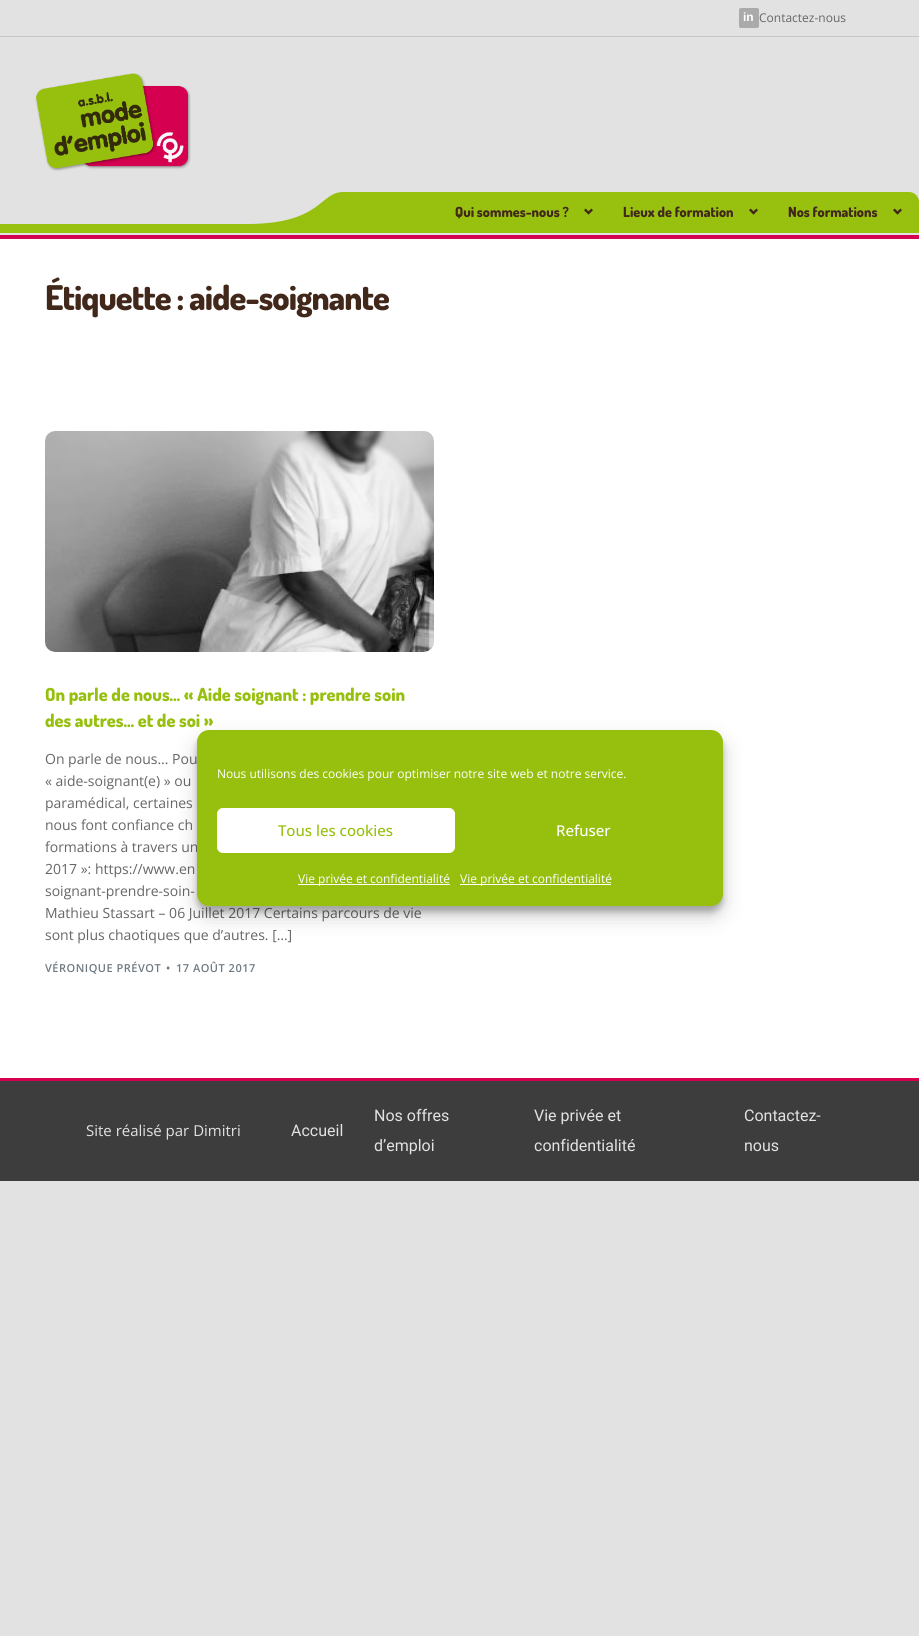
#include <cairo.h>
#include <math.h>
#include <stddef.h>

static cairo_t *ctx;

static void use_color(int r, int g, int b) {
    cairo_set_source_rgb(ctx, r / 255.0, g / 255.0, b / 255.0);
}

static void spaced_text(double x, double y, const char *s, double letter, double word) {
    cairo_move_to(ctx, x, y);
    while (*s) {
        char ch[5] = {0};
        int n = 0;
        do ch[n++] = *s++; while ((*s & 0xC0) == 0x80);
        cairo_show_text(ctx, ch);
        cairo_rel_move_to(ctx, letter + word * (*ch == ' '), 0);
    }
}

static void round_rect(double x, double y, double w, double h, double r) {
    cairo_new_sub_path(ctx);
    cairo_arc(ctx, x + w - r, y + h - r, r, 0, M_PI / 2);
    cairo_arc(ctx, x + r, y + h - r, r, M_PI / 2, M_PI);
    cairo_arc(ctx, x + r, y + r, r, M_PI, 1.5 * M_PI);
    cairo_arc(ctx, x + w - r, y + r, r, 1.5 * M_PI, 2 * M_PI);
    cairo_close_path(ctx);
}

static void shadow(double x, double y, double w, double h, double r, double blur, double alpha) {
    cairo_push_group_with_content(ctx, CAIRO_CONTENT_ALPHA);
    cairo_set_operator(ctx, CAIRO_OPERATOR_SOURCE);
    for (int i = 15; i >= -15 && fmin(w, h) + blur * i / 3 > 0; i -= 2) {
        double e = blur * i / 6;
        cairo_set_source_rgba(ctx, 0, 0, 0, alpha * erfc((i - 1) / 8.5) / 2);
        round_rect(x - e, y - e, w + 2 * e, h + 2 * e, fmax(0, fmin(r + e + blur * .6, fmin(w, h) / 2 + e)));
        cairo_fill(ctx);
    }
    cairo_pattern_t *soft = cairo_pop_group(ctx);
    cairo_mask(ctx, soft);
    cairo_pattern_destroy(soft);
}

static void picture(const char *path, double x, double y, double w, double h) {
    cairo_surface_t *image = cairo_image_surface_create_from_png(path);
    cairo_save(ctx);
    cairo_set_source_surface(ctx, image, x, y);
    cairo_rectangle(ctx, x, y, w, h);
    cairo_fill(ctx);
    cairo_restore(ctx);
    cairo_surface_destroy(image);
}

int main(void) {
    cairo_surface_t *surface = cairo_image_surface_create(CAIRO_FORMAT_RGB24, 919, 1636);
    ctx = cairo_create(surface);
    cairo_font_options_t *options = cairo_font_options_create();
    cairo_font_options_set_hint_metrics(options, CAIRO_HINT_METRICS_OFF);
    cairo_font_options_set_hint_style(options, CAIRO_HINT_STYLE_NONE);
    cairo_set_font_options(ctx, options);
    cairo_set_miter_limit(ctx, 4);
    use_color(226, 226, 226);
    cairo_paint(ctx);
    use_color(198, 198, 198);
    cairo_rectangle(ctx, 0, 36, 919, 1);
    cairo_fill(ctx);
    use_color(170, 170, 170);
    round_rect(739, 8, 20, 20, 2);
    cairo_fill(ctx);
    cairo_select_font_face(ctx, "Liberation Sans", CAIRO_FONT_SLANT_NORMAL, CAIRO_FONT_WEIGHT_BOLD);
    cairo_set_font_size(ctx, 12);
    use_color(255, 255, 255);
    cairo_move_to(ctx, 743, 21);
    cairo_show_text(ctx, "in");
    cairo_select_font_face(ctx, "Open Sans", CAIRO_FONT_SLANT_NORMAL, CAIRO_FONT_WEIGHT_NORMAL);
    use_color(102, 102, 102);
    cairo_move_to(ctx, 759, 22);
    cairo_show_text(ctx, "Contactez-nous");
    picture("img1.png", 0, 192, 919, 41);
    use_color(213, 0, 80);
    cairo_rectangle(ctx, 0, 235, 919, 4);
    cairo_fill(ctx);
    picture("img2.png", 35, 73, 156, 98);
    cairo_select_font_face(ctx, "Dosis ExtraBold", CAIRO_FONT_SLANT_NORMAL, CAIRO_FONT_WEIGHT_NORMAL);
    cairo_set_font_size(ctx, 14);
    use_color(65, 40, 27);
    cairo_move_to(ctx, 455, 217);
    cairo_show_text(ctx, "Qui sommes-nous ?");
    picture("img3.png", 584, 208, 9, 7);
    cairo_move_to(ctx, 623, 217);
    cairo_show_text(ctx, "Lieux de formation");
    picture("img3.png", 749, 208, 9, 7);
    cairo_move_to(ctx, 788, 217);
    cairo_show_text(ctx, "Nos formations");
    picture("img3.png", 893, 208, 9, 7);
    use_color(255, 255, 255);
    cairo_rectangle(ctx, 0, 239, 919, 839);
    cairo_fill(ctx);
    cairo_set_font_size(ctx, 34);
    use_color(65, 40, 27);
    spaced_text(45, 310, "Étiquette : aide-soignante", -0.9, 0);
    picture("img4.png", 45, 431, 389, 221);
    cairo_set_font_size(ctx, 18);
    use_color(151, 192, 14);
    cairo_move_to(ctx, 45, 701);
    cairo_show_text(ctx, "On parle de nous… « Aide soignant : prendre soin");
    cairo_move_to(ctx, 45, 727);
    cairo_show_text(ctx, "des autres… et de soi »");
    cairo_select_font_face(ctx, "Open Sans", CAIRO_FONT_SLANT_NORMAL, CAIRO_FONT_WEIGHT_NORMAL);
    cairo_set_font_size(ctx, 14);
    use_color(102, 102, 102);
    cairo_move_to(ctx, 45, 764);
    cairo_show_text(ctx, "On parle de nous… Pou");
    cairo_move_to(ctx, 45, 786);
    cairo_show_text(ctx, "« aide-soignant(e) » ou");
    cairo_move_to(ctx, 45, 808);
    cairo_show_text(ctx, "paramédical, certaines");
    cairo_move_to(ctx, 45, 830);
    cairo_show_text(ctx, "nous font confiance ch");
    cairo_move_to(ctx, 45, 852);
    cairo_show_text(ctx, "formations à travers un");
    cairo_move_to(ctx, 45, 874);
    cairo_show_text(ctx, "2017 »: https://www.en");
    cairo_move_to(ctx, 45, 896);
    cairo_show_text(ctx, "soignant-prendre-soin-");
    cairo_move_to(ctx, 45, 918);
    cairo_show_text(ctx, "Mathieu Stassart – 06 Juillet 2017 Certains parcours de vie");
    cairo_move_to(ctx, 45, 940);
    cairo_show_text(ctx, "sont plus chaotiques que d’autres. […]");
    cairo_select_font_face(ctx, "Open Sans SemiBold", CAIRO_FONT_SLANT_NORMAL, CAIRO_FONT_WEIGHT_NORMAL);
    cairo_set_font_size(ctx, 11);
    use_color(110, 122, 132);
    spaced_text(45, 972, "VÉRONIQUE PRÉVOT", 0.5, 0);
    spaced_text(166, 972, "•", 0.5, 0);
    spaced_text(176, 972, "17 AOÛT 2017", 0.5, 0);
    use_color(61, 61, 61);
    cairo_rectangle(ctx, 0, 1081, 919, 100);
    cairo_fill(ctx);
    use_color(213, 0, 80);
    cairo_rectangle(ctx, 0, 1078, 919, 3);
    cairo_fill(ctx);
    cairo_select_font_face(ctx, "Open Sans", CAIRO_FONT_SLANT_NORMAL, CAIRO_FONT_WEIGHT_NORMAL);
    cairo_set_font_size(ctx, 15);
    use_color(226, 226, 226);
    cairo_move_to(ctx, 86, 1136);
    cairo_show_text(ctx, "Site réalisé par Dimitri");
    cairo_select_font_face(ctx, "Roboto", CAIRO_FONT_SLANT_NORMAL, CAIRO_FONT_WEIGHT_NORMAL);
    cairo_set_font_size(ctx, 16);
    cairo_move_to(ctx, 291, 1136);
    cairo_show_text(ctx, "Accueil");
    cairo_move_to(ctx, 374, 1121);
    cairo_show_text(ctx, "Nos offres");
    cairo_move_to(ctx, 374, 1151);
    cairo_show_text(ctx, "d’emploi");
    cairo_move_to(ctx, 534, 1121);
    cairo_show_text(ctx, "Vie privée et");
    cairo_move_to(ctx, 534, 1151);
    cairo_show_text(ctx, "confidentialité");
    cairo_move_to(ctx, 744, 1121);
    cairo_show_text(ctx, "Contactez-");
    cairo_move_to(ctx, 744, 1151);
    cairo_show_text(ctx, "nous");
    use_color(0, 0, 0);
    shadow(197, 736, 526, 176, 12, 3, 0.23);
    shadow(197, 740, 526, 176, 12, 10, 0.19);
    use_color(151, 192, 14);
    round_rect(197, 730, 526, 176, 12);
    cairo_fill(ctx);
    cairo_select_font_face(ctx, "Open Sans", CAIRO_FONT_SLANT_NORMAL, CAIRO_FONT_WEIGHT_NORMAL);
    cairo_set_font_size(ctx, 12);
    use_color(255, 255, 255);
    cairo_move_to(ctx, 217, 778);
    cairo_show_text(ctx, "Nous utilisons des cookies pour optimiser notre site web et notre service.");
    round_rect(217.5, 808.5, 237, 44, 5.5);
    cairo_fill_preserve(ctx);
    cairo_set_line_width(ctx, 1);
    cairo_stroke(ctx);
    cairo_select_font_face(ctx, "Open Sans Medium", CAIRO_FONT_SLANT_NORMAL, CAIRO_FONT_WEIGHT_NORMAL);
    cairo_set_font_size(ctx, 15);
    use_color(151, 192, 14);
    cairo_move_to(ctx, 278, 836);
    cairo_show_text(ctx, "Tous les cookies");
    use_color(255, 255, 255);
    cairo_move_to(ctx, 556, 836);
    cairo_show_text(ctx, "Refuser");
    cairo_rectangle(ctx, 298, 884, 152, 1);
    cairo_fill(ctx);
    cairo_select_font_face(ctx, "Open Sans", CAIRO_FONT_SLANT_NORMAL, CAIRO_FONT_WEIGHT_NORMAL);
    cairo_set_font_size(ctx, 12);
    cairo_move_to(ctx, 298, 883);
    cairo_show_text(ctx, "Vie privée et confidentialité");
    cairo_rectangle(ctx, 460, 884, 151, 1);
    cairo_fill(ctx);
    cairo_move_to(ctx, 460, 883);
    cairo_show_text(ctx, "Vie privée et confidentialité");
    cairo_surface_write_to_png(surface, "result.png");
    cairo_font_options_destroy(options);
    cairo_destroy(ctx);
    cairo_surface_destroy(surface);
    return 0;
}
